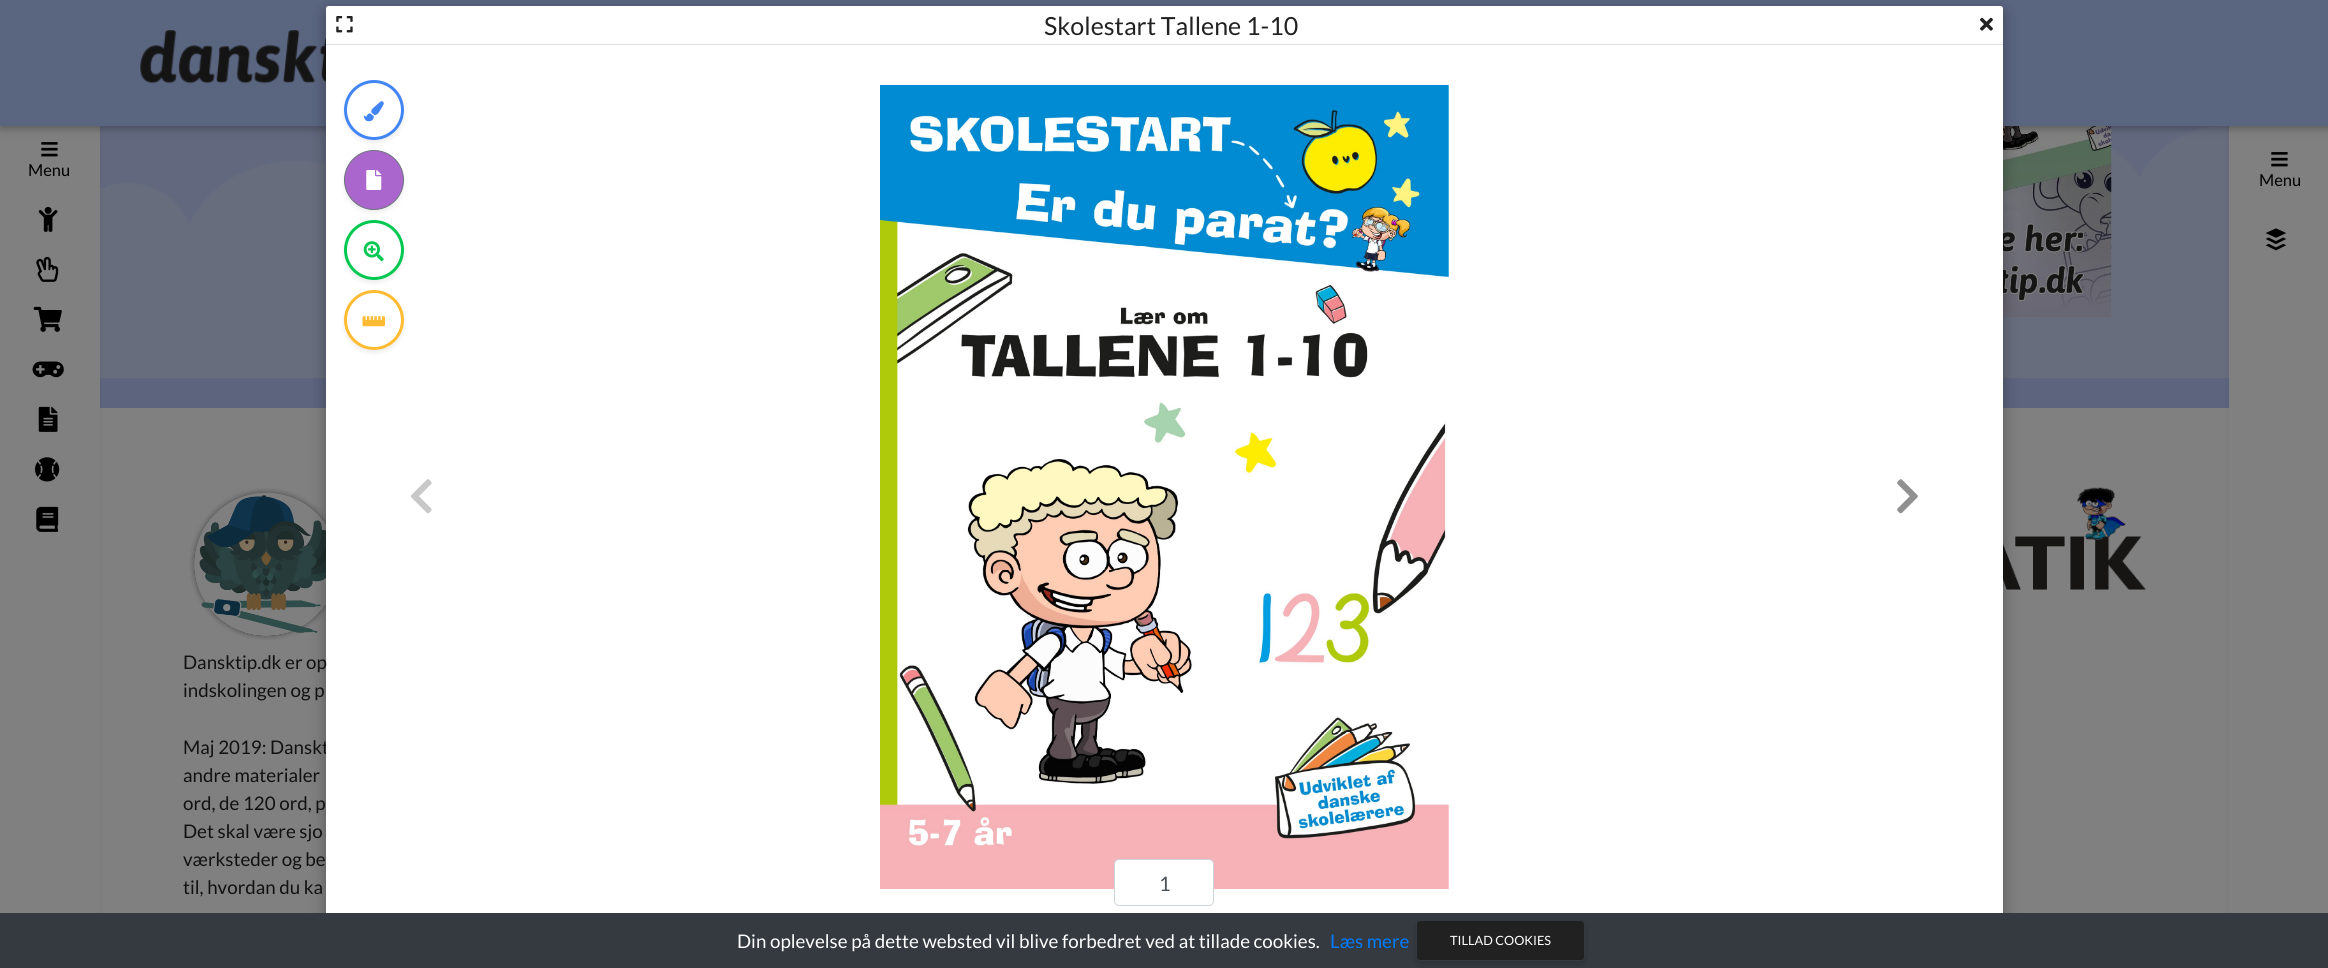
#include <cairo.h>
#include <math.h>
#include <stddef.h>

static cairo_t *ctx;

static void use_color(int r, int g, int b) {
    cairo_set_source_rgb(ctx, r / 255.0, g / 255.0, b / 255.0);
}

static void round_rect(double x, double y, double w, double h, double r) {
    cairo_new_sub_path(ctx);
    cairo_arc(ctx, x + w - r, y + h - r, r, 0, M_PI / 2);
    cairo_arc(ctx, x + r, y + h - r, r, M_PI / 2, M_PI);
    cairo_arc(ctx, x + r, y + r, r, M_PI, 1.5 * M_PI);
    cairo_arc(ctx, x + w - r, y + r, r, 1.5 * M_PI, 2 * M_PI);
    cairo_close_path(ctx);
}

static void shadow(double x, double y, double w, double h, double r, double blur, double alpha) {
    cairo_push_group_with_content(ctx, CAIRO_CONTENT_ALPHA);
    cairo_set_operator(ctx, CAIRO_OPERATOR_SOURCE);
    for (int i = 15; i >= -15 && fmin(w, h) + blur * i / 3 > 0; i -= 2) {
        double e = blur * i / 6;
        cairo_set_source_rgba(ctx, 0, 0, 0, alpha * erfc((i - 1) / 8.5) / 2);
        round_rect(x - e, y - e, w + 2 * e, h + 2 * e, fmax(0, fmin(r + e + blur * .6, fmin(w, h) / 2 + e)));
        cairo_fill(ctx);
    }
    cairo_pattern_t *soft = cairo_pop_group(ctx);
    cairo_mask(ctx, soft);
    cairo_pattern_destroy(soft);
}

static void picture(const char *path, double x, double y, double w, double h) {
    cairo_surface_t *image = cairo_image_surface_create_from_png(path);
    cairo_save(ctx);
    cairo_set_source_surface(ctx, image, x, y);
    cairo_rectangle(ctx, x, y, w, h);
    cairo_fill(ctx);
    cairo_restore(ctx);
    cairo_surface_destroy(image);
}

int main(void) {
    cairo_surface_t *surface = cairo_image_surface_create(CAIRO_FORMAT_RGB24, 2328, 968);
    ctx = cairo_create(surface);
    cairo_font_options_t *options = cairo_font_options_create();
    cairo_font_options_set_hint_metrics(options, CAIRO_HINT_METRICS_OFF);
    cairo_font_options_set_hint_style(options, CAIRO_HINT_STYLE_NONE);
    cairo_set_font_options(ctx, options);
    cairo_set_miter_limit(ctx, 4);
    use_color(255, 255, 255);
    cairo_paint(ctx);
    picture("img1.png", 100, 126, 2129, 282);
    use_color(128, 128, 128);
    cairo_rectangle(ctx, 100, 408, 2129, 505);
    cairo_fill(ctx);
    use_color(0, 0, 0);
    shadow(-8, 3, 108, 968, 0, 2.5, 0.07);
    use_color(128, 128, 128);
    cairo_rectangle(ctx, 0, 126, 100, 787);
    cairo_fill(ctx);
    picture("img12.png", 41, 142, 17, 15);
    picture("img20.png", 2003, 126, 109, 192);
    use_color(0, 0, 0);
    shadow(2229, 3, 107, 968, 0, 2.5, 0.07);
    use_color(128, 128, 128);
    cairo_rectangle(ctx, 2229, 126, 99, 787);
    cairo_fill(ctx);
    use_color(0, 0, 0);
    shadow(0, 3, 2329, 126, 0, 6, 0.12);
    shadow(0, 3, 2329, 126, 0, 3, 0.16);
    use_color(90, 101, 128);
    cairo_rectangle(ctx, 0, 0, 2328, 126);
    cairo_fill(ctx);
    picture("img11.png", 140, 30, 186, 54);
    picture("img22.png", 189, 488, 137, 152);
    picture("img23.png", 2003, 487, 144, 103);
    use_color(0, 0, 0);
    shadow(326, 11, 1677, 910, 2.5, 9.5, 0.15);
    shadow(326, 13, 1677, 910, 2.5, 7, 0.18);
    cairo_select_font_face(ctx, "Lato", CAIRO_FONT_SLANT_NORMAL, CAIRO_FONT_WEIGHT_NORMAL);
    cairo_set_font_size(ctx, 18.75);
    use_color(17, 17, 17);
    cairo_move_to(ctx, 183, 754);
    cairo_show_text(ctx, "Maj 2019: Danskt");
    use_color(255, 255, 255);
    round_rect(326, 6, 1677, 910, 2.5);
    cairo_fill(ctx);
    use_color(222, 226, 230);
    cairo_rectangle(ctx, 326, 44, 1677, 1);
    cairo_fill(ctx);
    picture("img2.png", 336, 16, 17, 17);
    cairo_set_font_size(ctx, 25);
    use_color(34, 34, 34);
    cairo_move_to(ctx, 1044, 35);
    cairo_show_text(ctx, "Skolestart Tallene 1-10");
    picture("img3.png", 1980, 17, 13, 14);
    cairo_save(ctx);
    cairo_set_fill_rule(ctx, CAIRO_FILL_RULE_EVEN_ODD);
    cairo_new_path(ctx);
    cairo_move_to(ctx, 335, 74);
    cairo_line_to(ctx, 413, 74);
    cairo_line_to(ctx, 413, 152);
    cairo_line_to(ctx, 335, 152);
    cairo_close_path(ctx);
    cairo_move_to(ctx, 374, 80);
    cairo_curve_to(ctx, 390.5, 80, 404, 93.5, 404, 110);
    cairo_curve_to(ctx, 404, 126.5, 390.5, 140, 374, 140);
    cairo_curve_to(ctx, 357.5, 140, 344, 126.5, 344, 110);
    cairo_curve_to(ctx, 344, 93.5, 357.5, 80, 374, 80);
    cairo_close_path(ctx);
    cairo_clip(ctx);
    use_color(0, 0, 0);
    shadow(344, 83, 60, 60, 30, 2.5, 0.07);
    cairo_restore(ctx);
    cairo_arc(ctx, 374, 110, 28.5, 0, 2 * M_PI);
    use_color(66, 133, 244);
    cairo_set_line_width(ctx, 3);
    cairo_stroke(ctx);
    picture("img4.png", 363, 101, 21, 21);
    use_color(0, 0, 0);
    shadow(344, 153, 60, 60, 30, 2.5, 0.07);
    use_color(170, 102, 204);
    cairo_arc(ctx, 374, 180, 29.5, 0, 2 * M_PI);
    cairo_fill_preserve(ctx);
    use_color(108, 117, 125);
    cairo_set_line_width(ctx, 1);
    cairo_stroke(ctx);
    picture("img5.png", 366, 170, 16, 20);
    cairo_save(ctx);
    cairo_set_fill_rule(ctx, CAIRO_FILL_RULE_EVEN_ODD);
    cairo_new_path(ctx);
    cairo_move_to(ctx, 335, 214);
    cairo_line_to(ctx, 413, 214);
    cairo_line_to(ctx, 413, 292);
    cairo_line_to(ctx, 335, 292);
    cairo_close_path(ctx);
    cairo_move_to(ctx, 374, 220);
    cairo_curve_to(ctx, 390.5, 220, 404, 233.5, 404, 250);
    cairo_curve_to(ctx, 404, 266.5, 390.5, 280, 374, 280);
    cairo_curve_to(ctx, 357.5, 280, 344, 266.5, 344, 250);
    cairo_curve_to(ctx, 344, 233.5, 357.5, 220, 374, 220);
    cairo_close_path(ctx);
    cairo_clip(ctx);
    use_color(0, 0, 0);
    shadow(344, 223, 60, 60, 30, 2.5, 0.07);
    cairo_restore(ctx);
    cairo_arc(ctx, 374, 250, 28.5, 0, 2 * M_PI);
    use_color(0, 200, 81);
    cairo_set_line_width(ctx, 3);
    cairo_stroke(ctx);
    picture("img6.png", 363, 241, 21, 21);
    cairo_save(ctx);
    cairo_set_fill_rule(ctx, CAIRO_FILL_RULE_EVEN_ODD);
    cairo_new_path(ctx);
    cairo_move_to(ctx, 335, 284);
    cairo_line_to(ctx, 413, 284);
    cairo_line_to(ctx, 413, 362);
    cairo_line_to(ctx, 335, 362);
    cairo_close_path(ctx);
    cairo_move_to(ctx, 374, 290);
    cairo_curve_to(ctx, 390.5, 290, 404, 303.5, 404, 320);
    cairo_curve_to(ctx, 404, 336.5, 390.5, 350, 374, 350);
    cairo_curve_to(ctx, 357.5, 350, 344, 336.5, 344, 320);
    cairo_curve_to(ctx, 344, 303.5, 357.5, 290, 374, 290);
    cairo_close_path(ctx);
    cairo_clip(ctx);
    use_color(0, 0, 0);
    shadow(344, 293, 60, 60, 30, 2.5, 0.07);
    cairo_restore(ctx);
    cairo_arc(ctx, 374, 320, 28.5, 0, 2 * M_PI);
    use_color(255, 187, 51);
    cairo_stroke(ctx);
    picture("img7.png", 362, 316, 23, 11);
    picture("img8.png", 411, 479, 21, 35);
    picture("img9.png", 880, 84, 569, 805);
    picture("img10.png", 1897, 479, 21, 35);
    use_color(255, 255, 255);
    round_rect(1114.5, 859.5, 99, 46, 4.5);
    cairo_fill_preserve(ctx);
    use_color(206, 212, 218);
    cairo_set_line_width(ctx, 1);
    cairo_stroke(ctx);
    cairo_set_font_size(ctx, 20);
    use_color(73, 80, 87);
    cairo_move_to(ctx, 1159, 891);
    cairo_show_text(ctx, "1");
    cairo_set_font_size(ctx, 16.5);
    use_color(0, 0, 0);
    cairo_move_to(ctx, 28, 176);
    cairo_show_text(ctx, "Menu");
    picture("img13.png", 38, 206, 20, 26);
    picture("img14.png", 36, 256, 23, 26);
    picture("img15.png", 33, 306, 29, 26);
    picture("img16.png", 32, 361, 32, 17);
    picture("img17.png", 38, 406, 20, 26);
    picture("img18.png", 35, 457, 25, 25);
    picture("img19.png", 36, 506, 23, 26);
    picture("img12.png", 2271, 152, 17, 15);
    cairo_move_to(ctx, 2259, 186);
    cairo_show_text(ctx, "Menu");
    picture("img21.png", 2265, 228, 21, 23);
    cairo_set_font_size(ctx, 18.75);
    use_color(17, 17, 17);
    cairo_move_to(ctx, 183, 669);
    cairo_show_text(ctx, "Dansktip.dk er op");
    cairo_move_to(ctx, 183, 697);
    cairo_show_text(ctx, "indskolingen og p");
    cairo_move_to(ctx, 183, 782);
    cairo_show_text(ctx, "andre materialer");
    cairo_move_to(ctx, 183, 810);
    cairo_show_text(ctx, "ord, de 120 ord, p");
    cairo_move_to(ctx, 183, 838);
    cairo_show_text(ctx, "Det skal være sjo");
    cairo_move_to(ctx, 183, 866);
    cairo_show_text(ctx, "værksteder og be");
    cairo_move_to(ctx, 183, 894);
    cairo_show_text(ctx, "til, hvordan du ka");
    use_color(52, 58, 64);
    cairo_rectangle(ctx, 0, 913, 2328, 55);
    cairo_fill(ctx);
    use_color(255, 255, 255);
    cairo_move_to(ctx, 737, 948);
    cairo_show_text(ctx, "Din oplevelse på dette websted vil blive forbedret ved at tillade cookies.");
    use_color(0, 123, 255);
    cairo_move_to(ctx, 1330, 948);
    cairo_show_text(ctx, "Læs mere");
    use_color(0, 0, 0);
    shadow(1416, 923, 169, 41, 4, 3, 0.16);
    use_color(33, 33, 33);
    round_rect(1416.5, 920.5, 168, 40, 3.5);
    cairo_fill_preserve(ctx);
    use_color(52, 58, 64);
    cairo_stroke(ctx);
    cairo_set_font_size(ctx, 12.75);
    use_color(255, 255, 255);
    cairo_move_to(ctx, 1450, 945);
    cairo_show_text(ctx, "TILLAD COOKIES");
    cairo_surface_write_to_png(surface, "result.png");
    cairo_font_options_destroy(options);
    cairo_destroy(ctx);
    cairo_surface_destroy(surface);
    return 0;
}
